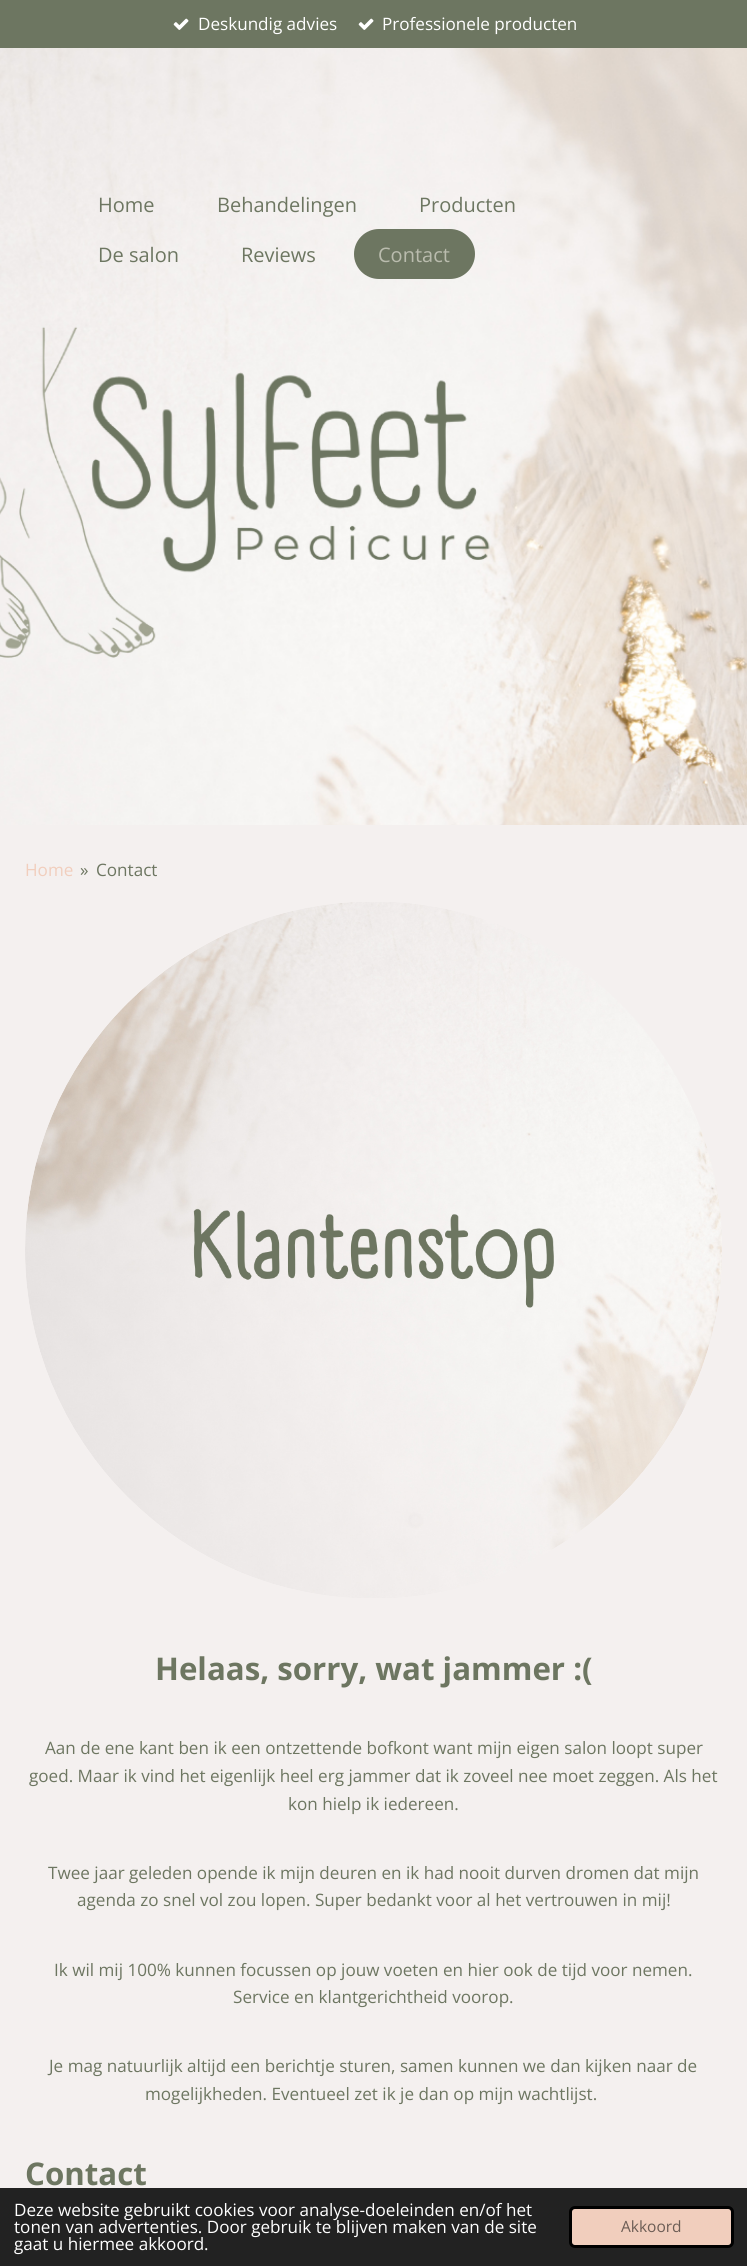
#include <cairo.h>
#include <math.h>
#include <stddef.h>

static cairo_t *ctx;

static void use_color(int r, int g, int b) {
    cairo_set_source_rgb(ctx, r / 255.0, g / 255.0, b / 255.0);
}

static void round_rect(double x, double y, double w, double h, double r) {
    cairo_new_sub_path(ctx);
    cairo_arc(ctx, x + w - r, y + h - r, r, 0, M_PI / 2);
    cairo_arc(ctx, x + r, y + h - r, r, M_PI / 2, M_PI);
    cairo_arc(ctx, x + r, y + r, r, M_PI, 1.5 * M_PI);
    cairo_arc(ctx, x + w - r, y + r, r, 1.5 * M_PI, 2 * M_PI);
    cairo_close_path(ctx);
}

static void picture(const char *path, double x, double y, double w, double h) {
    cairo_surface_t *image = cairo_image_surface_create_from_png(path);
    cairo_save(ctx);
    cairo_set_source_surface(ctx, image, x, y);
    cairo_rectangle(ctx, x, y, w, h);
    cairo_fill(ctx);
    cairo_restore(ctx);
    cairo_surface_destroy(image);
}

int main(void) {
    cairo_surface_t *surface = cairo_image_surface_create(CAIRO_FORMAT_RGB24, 747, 2266);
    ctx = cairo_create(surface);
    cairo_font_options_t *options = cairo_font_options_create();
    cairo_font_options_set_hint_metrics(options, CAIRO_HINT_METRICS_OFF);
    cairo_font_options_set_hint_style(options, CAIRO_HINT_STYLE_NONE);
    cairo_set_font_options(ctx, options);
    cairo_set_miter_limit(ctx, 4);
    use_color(244, 240, 239);
    cairo_paint(ctx);
    use_color(109, 118, 97);
    cairo_rectangle(ctx, 0, 0, 747, 48);
    cairo_fill(ctx);
    picture("img1.png", 173, 18, 16, 12);
    cairo_select_font_face(ctx, "Open Sans", CAIRO_FONT_SLANT_NORMAL, CAIRO_FONT_WEIGHT_NORMAL);
    cairo_set_font_size(ctx, 17.1);
    use_color(255, 255, 255);
    cairo_move_to(ctx, 198, 30);
    cairo_show_text(ctx, "Deskundig advies");
    picture("img1.png", 358, 18, 16, 12);
    cairo_move_to(ctx, 382, 30);
    cairo_show_text(ctx, "Professionele producten");
    picture("img2.png", 0, 48, 747, 777);
    cairo_set_font_size(ctx, 20);
    use_color(109, 118, 97);
    cairo_move_to(ctx, 98, 212);
    cairo_show_text(ctx, "Home");
    cairo_move_to(ctx, 217, 212);
    cairo_show_text(ctx, "Behandelingen");
    cairo_move_to(ctx, 419, 212);
    cairo_show_text(ctx, "Producten");
    cairo_move_to(ctx, 98, 262);
    cairo_show_text(ctx, "De salon");
    cairo_move_to(ctx, 241, 262);
    cairo_show_text(ctx, "Reviews");
    round_rect(354, 229, 121, 50, 25);
    cairo_fill(ctx);
    use_color(186, 188, 174);
    cairo_move_to(ctx, 378, 262);
    cairo_show_text(ctx, "Contact");
    cairo_set_font_size(ctx, 17.1);
    use_color(241, 206, 189);
    cairo_move_to(ctx, 25, 876);
    cairo_show_text(ctx, "Home");
    use_color(109, 118, 97);
    cairo_move_to(ctx, 80, 876);
    cairo_show_text(ctx, "»");
    cairo_move_to(ctx, 96, 876);
    cairo_show_text(ctx, "Contact");
    picture("img3.png", 25, 902, 697, 696);
    cairo_select_font_face(ctx, "Open Sans", CAIRO_FONT_SLANT_NORMAL, CAIRO_FONT_WEIGHT_BOLD);
    cairo_set_font_size(ctx, 31.25);
    cairo_move_to(ctx, 155, 1680);
    cairo_show_text(ctx, "Helaas, sorry, wat jammer :(");
    cairo_select_font_face(ctx, "Open Sans", CAIRO_FONT_SLANT_NORMAL, CAIRO_FONT_WEIGHT_NORMAL);
    cairo_set_font_size(ctx, 17.1);
    cairo_move_to(ctx, 45, 1754);
    cairo_show_text(ctx, "Aan de ene kant ben ik een ontzettende bofkont want mijn eigen salon loopt super");
    cairo_move_to(ctx, 29, 1782);
    cairo_show_text(ctx, "goed. Maar ik vind het eigenlijk heel erg jammer dat ik zoveel nee moet zeggen. Als het");
    cairo_move_to(ctx, 288, 1810);
    cairo_show_text(ctx, "kon hielp ik iedereen.");
    cairo_move_to(ctx, 48, 1879);
    cairo_show_text(ctx, "Twee jaar geleden opende ik mijn deuren en ik had nooit durven dromen dat mijn");
    cairo_move_to(ctx, 77, 1906);
    cairo_show_text(ctx, "agenda zo snel vol zou lopen. Super bedankt voor al het vertrouwen in mij!");
    cairo_move_to(ctx, 54, 1976);
    cairo_show_text(ctx, "Ik wil mij 100% kunnen focussen op jouw voeten en hier ook de tijd voor nemen.");
    cairo_move_to(ctx, 233, 2003);
    cairo_show_text(ctx, "Service en klantgerichtheid voorop.");
    cairo_move_to(ctx, 49, 2072);
    cairo_show_text(ctx, "Je mag natuurlijk altijd een berichtje sturen, samen kunnen we dan kijken naar de");
    cairo_move_to(ctx, 145, 2100);
    cairo_show_text(ctx, "mogelijkheden. Eventueel zet ik je dan op mijn wachtlijst.");
    cairo_select_font_face(ctx, "Open Sans", CAIRO_FONT_SLANT_NORMAL, CAIRO_FONT_WEIGHT_BOLD);
    cairo_set_font_size(ctx, 31.25);
    cairo_move_to(ctx, 25, 2185);
    cairo_show_text(ctx, "Contact");
    use_color(34, 34, 34);
    cairo_rectangle(ctx, 0, 2188, 747, 78);
    cairo_fill(ctx);
    cairo_select_font_face(ctx, "Open Sans", CAIRO_FONT_SLANT_NORMAL, CAIRO_FONT_WEIGHT_NORMAL);
    cairo_set_font_size(ctx, 17.1);
    use_color(255, 255, 255);
    cairo_move_to(ctx, 14, 2216);
    cairo_show_text(ctx, "Deze website gebruikt cookies voor analyse-doeleinden en/of het");
    cairo_move_to(ctx, 14, 2233);
    cairo_show_text(ctx, "tonen van advertenties. Door gebruik te blijven maken van de site");
    cairo_move_to(ctx, 14, 2250);
    cairo_show_text(ctx, "gaat u hiermee akkoord.");
    use_color(241, 206, 189);
    round_rect(570.5, 2207.5, 162, 39, 4.5);
    cairo_fill_preserve(ctx);
    use_color(0, 0, 0);
    cairo_set_line_width(ctx, 3);
    cairo_stroke(ctx);
    cairo_set_font_size(ctx, 15.5);
    use_color(108, 93, 85);
    cairo_move_to(ctx, 621, 2232);
    cairo_show_text(ctx, "Akkoord");
    cairo_surface_write_to_png(surface, "result.png");
    cairo_font_options_destroy(options);
    cairo_destroy(ctx);
    cairo_surface_destroy(surface);
    return 0;
}
